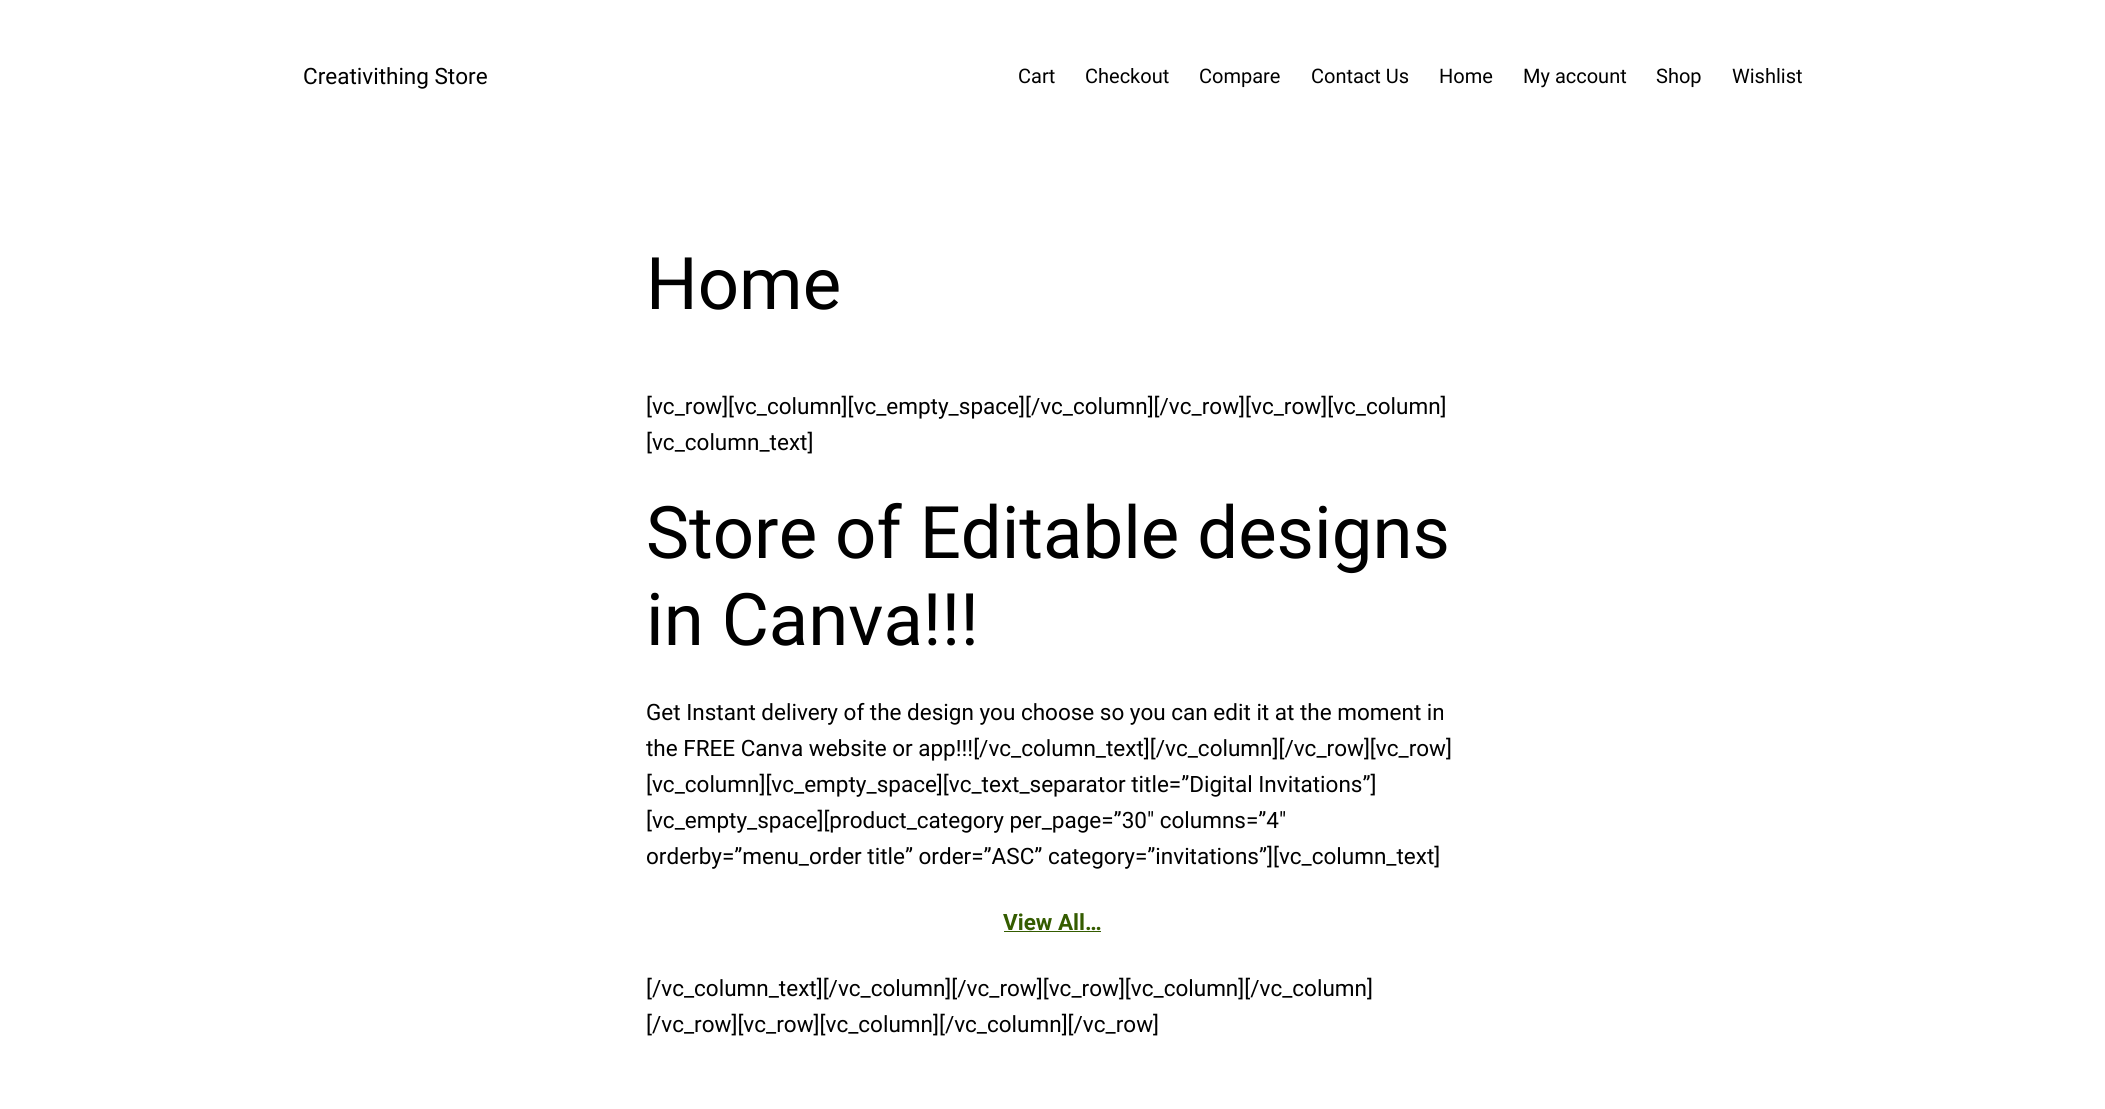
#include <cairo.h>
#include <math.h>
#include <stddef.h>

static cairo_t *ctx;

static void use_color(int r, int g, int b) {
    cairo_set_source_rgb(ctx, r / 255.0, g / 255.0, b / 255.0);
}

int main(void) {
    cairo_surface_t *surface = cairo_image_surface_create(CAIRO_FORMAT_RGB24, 2105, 1109);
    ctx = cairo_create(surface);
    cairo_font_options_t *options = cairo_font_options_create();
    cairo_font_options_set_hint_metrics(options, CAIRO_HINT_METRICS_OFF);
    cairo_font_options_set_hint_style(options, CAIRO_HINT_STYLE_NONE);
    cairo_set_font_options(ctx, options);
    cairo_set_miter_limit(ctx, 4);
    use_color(255, 255, 255);
    cairo_paint(ctx);
    cairo_select_font_face(ctx, "Roboto", CAIRO_FONT_SLANT_NORMAL, CAIRO_FONT_WEIGHT_NORMAL);
    cairo_set_font_size(ctx, 22.5);
    use_color(0, 0, 0);
    cairo_move_to(ctx, 303, 84);
    cairo_show_text(ctx, "Creativithing Store");
    cairo_set_font_size(ctx, 20);
    cairo_move_to(ctx, 1018, 83);
    cairo_show_text(ctx, "Cart");
    cairo_move_to(ctx, 1085, 83);
    cairo_show_text(ctx, "Checkout");
    cairo_move_to(ctx, 1199, 83);
    cairo_show_text(ctx, "Compare");
    cairo_move_to(ctx, 1311, 83);
    cairo_show_text(ctx, "Contact Us");
    cairo_move_to(ctx, 1439, 83);
    cairo_show_text(ctx, "Home");
    cairo_move_to(ctx, 1523, 83);
    cairo_show_text(ctx, "My account");
    cairo_move_to(ctx, 1656, 83);
    cairo_show_text(ctx, "Shop");
    cairo_move_to(ctx, 1732, 83);
    cairo_show_text(ctx, "Wishlist");
    cairo_set_font_size(ctx, 72.5);
    cairo_move_to(ctx, 646, 309);
    cairo_show_text(ctx, "Home");
    cairo_set_font_size(ctx, 22.5);
    cairo_move_to(ctx, 646, 414);
    cairo_show_text(ctx, "[vc_row][vc_column][vc_empty_space][/vc_column][/vc_row][vc_row][vc_column]");
    cairo_move_to(ctx, 646, 450);
    cairo_show_text(ctx, "[vc_column_text]");
    cairo_set_font_size(ctx, 72.5);
    cairo_move_to(ctx, 646, 558);
    cairo_show_text(ctx, "Store of Editable designs");
    cairo_move_to(ctx, 646, 645);
    cairo_show_text(ctx, "in Canva!!!");
    cairo_set_font_size(ctx, 22.5);
    cairo_move_to(ctx, 646, 720);
    cairo_show_text(ctx, "Get Instant delivery of the design you choose so you can edit it at the moment in");
    cairo_move_to(ctx, 646, 756);
    cairo_show_text(ctx, "the FREE Canva website or app!!![/vc_column_text][/vc_column][/vc_row][vc_row]");
    cairo_move_to(ctx, 646, 792);
    cairo_show_text(ctx, "[vc_column][vc_empty_space][vc_text_separator title=”Digital Invitations”]");
    cairo_move_to(ctx, 646, 828);
    cairo_show_text(ctx, "[vc_empty_space][product_category per_page=”30″ columns=”4″");
    cairo_move_to(ctx, 646, 864);
    cairo_show_text(ctx, "orderby=”menu_order title” order=”ASC” category=”invitations”][vc_column_text]");
    cairo_select_font_face(ctx, "Roboto", CAIRO_FONT_SLANT_NORMAL, CAIRO_FONT_WEIGHT_BOLD);
    use_color(52, 92, 0);
    cairo_move_to(ctx, 1003, 930);
    cairo_show_text(ctx, "View All…");
    cairo_rectangle(ctx, 1004, 931, 97, 1);
    cairo_fill(ctx);
    cairo_select_font_face(ctx, "Roboto", CAIRO_FONT_SLANT_NORMAL, CAIRO_FONT_WEIGHT_NORMAL);
    use_color(0, 0, 0);
    cairo_move_to(ctx, 646, 996);
    cairo_show_text(ctx, "[/vc_column_text][/vc_column][/vc_row][vc_row][vc_column][/vc_column]");
    cairo_move_to(ctx, 646, 1032);
    cairo_show_text(ctx, "[/vc_row][vc_row][vc_column][/vc_column][/vc_row]");
    cairo_surface_write_to_png(surface, "result.png");
    cairo_font_options_destroy(options);
    cairo_destroy(ctx);
    cairo_surface_destroy(surface);
    return 0;
}
